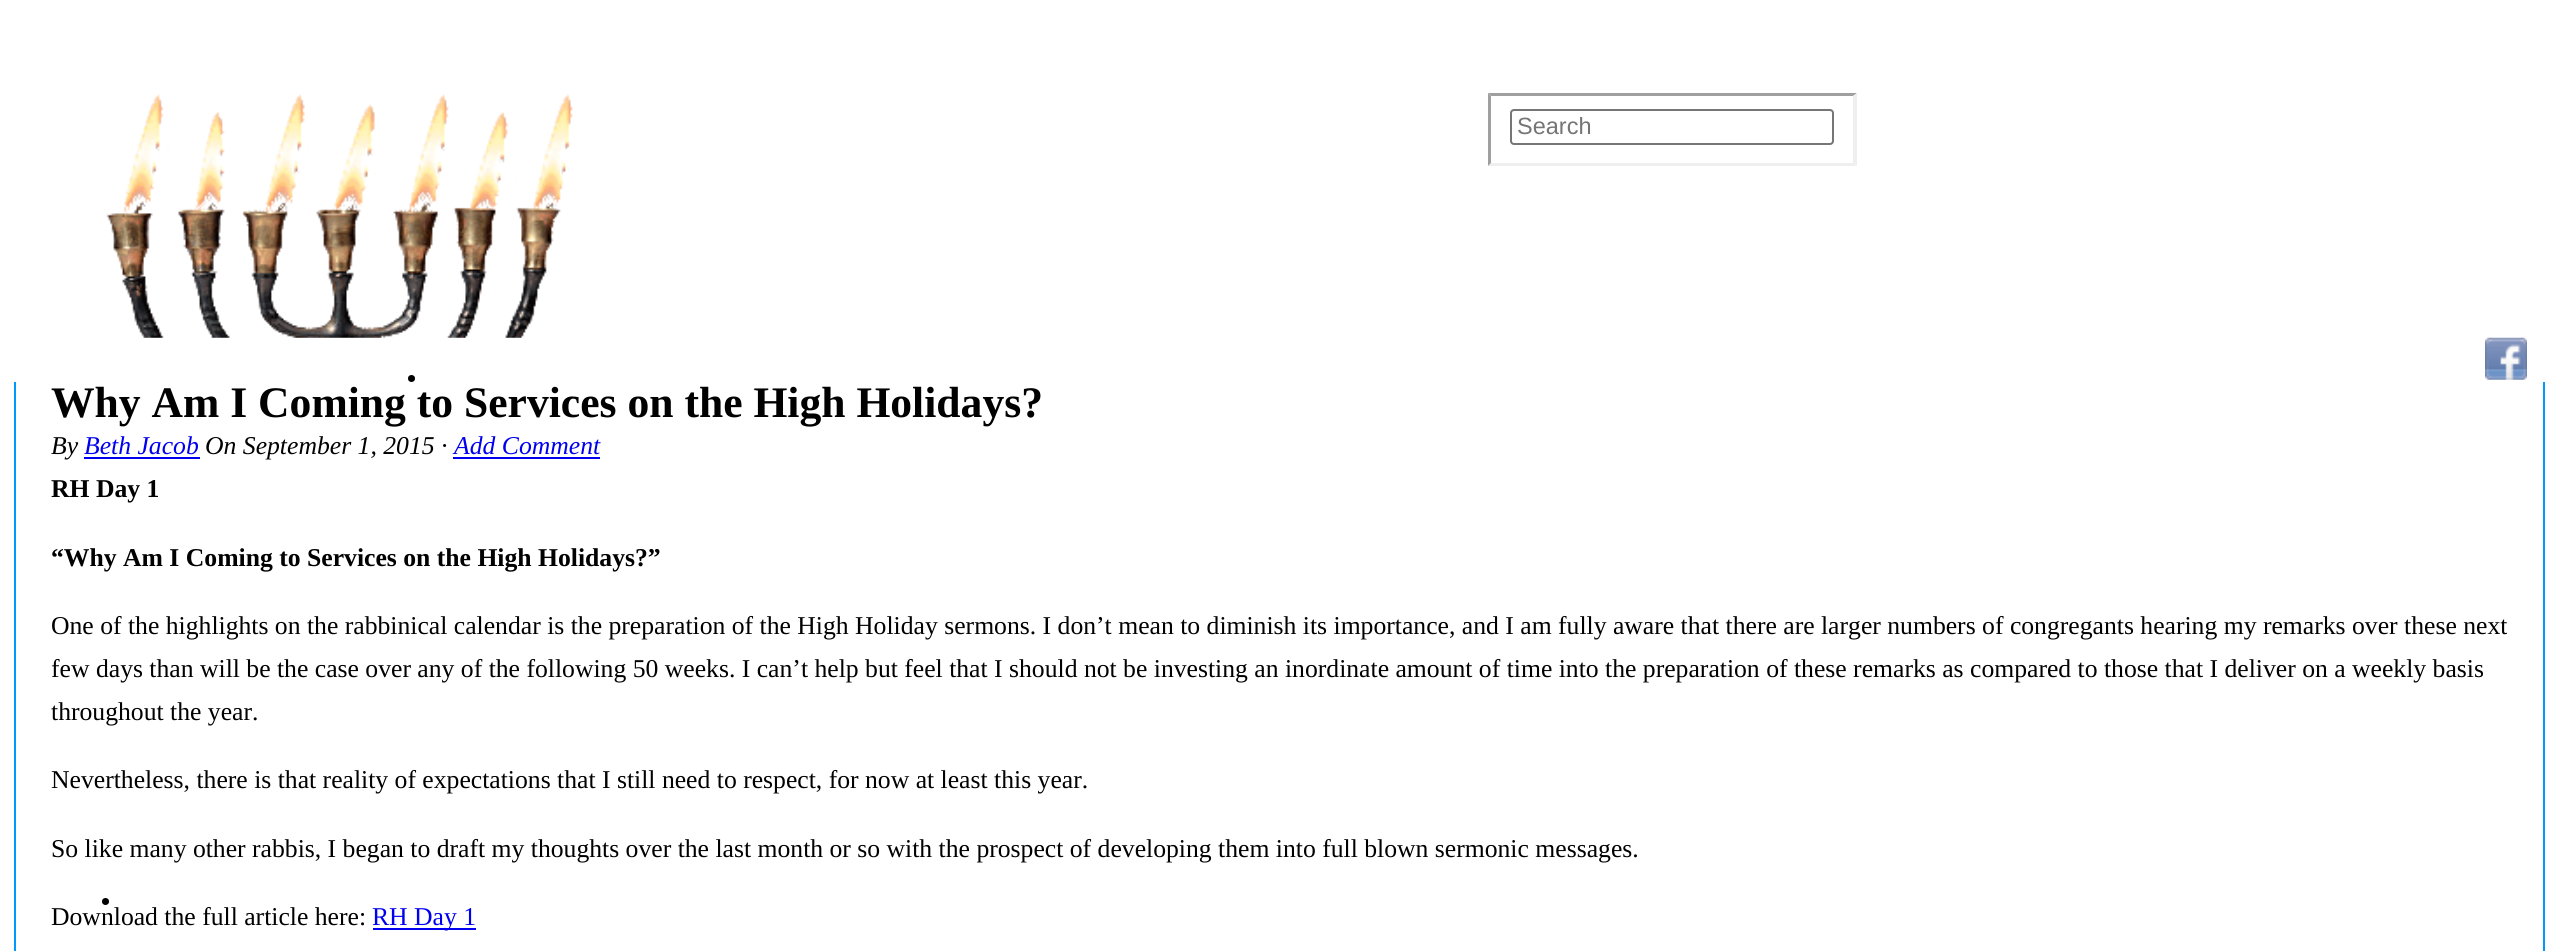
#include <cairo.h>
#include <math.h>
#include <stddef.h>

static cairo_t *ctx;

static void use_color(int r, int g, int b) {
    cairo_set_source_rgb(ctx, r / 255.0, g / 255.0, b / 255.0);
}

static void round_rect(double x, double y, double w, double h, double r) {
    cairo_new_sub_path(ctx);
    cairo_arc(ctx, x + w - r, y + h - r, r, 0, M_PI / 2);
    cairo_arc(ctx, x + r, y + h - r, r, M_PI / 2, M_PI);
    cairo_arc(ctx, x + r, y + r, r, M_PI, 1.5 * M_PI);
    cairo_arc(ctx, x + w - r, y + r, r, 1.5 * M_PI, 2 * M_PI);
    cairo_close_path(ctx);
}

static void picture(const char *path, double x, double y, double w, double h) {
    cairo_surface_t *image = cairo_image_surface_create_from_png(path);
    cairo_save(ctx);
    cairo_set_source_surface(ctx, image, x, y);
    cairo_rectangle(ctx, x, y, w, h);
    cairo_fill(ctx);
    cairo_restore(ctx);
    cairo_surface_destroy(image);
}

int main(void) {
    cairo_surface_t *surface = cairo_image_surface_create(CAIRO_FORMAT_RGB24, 2557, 951);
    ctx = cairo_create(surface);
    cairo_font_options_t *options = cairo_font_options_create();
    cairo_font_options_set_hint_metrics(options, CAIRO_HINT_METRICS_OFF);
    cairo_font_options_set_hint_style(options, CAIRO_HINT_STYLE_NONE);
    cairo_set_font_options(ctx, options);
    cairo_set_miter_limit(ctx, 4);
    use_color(255, 255, 255);
    cairo_paint(ctx);
    picture("img1.png", 106, 94, 467, 244);
    picture("img2.png", 2485, 337, 42, 43);
    use_color(159, 159, 159);
    cairo_new_path(ctx);
    cairo_move_to(ctx, 1488, 93);
    cairo_line_to(ctx, 1857, 93);
    cairo_line_to(ctx, 1853, 96);
    cairo_line_to(ctx, 1491, 96);
    cairo_close_path(ctx);
    cairo_fill(ctx);
    use_color(239, 239, 239);
    cairo_new_path(ctx);
    cairo_move_to(ctx, 1857, 93);
    cairo_line_to(ctx, 1857, 166);
    cairo_line_to(ctx, 1853, 163);
    cairo_line_to(ctx, 1853, 96);
    cairo_close_path(ctx);
    cairo_fill(ctx);
    cairo_new_path(ctx);
    cairo_move_to(ctx, 1857, 166);
    cairo_line_to(ctx, 1488, 166);
    cairo_line_to(ctx, 1491, 163);
    cairo_line_to(ctx, 1853, 163);
    cairo_close_path(ctx);
    cairo_fill(ctx);
    use_color(159, 159, 159);
    cairo_new_path(ctx);
    cairo_move_to(ctx, 1488, 166);
    cairo_line_to(ctx, 1488, 93);
    cairo_line_to(ctx, 1491, 96);
    cairo_line_to(ctx, 1491, 163);
    cairo_close_path(ctx);
    cairo_fill(ctx);
    round_rect(1511, 110, 322, 34, 3);
    use_color(118, 118, 118);
    cairo_stroke(ctx);
    cairo_select_font_face(ctx, "Liberation Sans", CAIRO_FONT_SLANT_NORMAL, CAIRO_FONT_WEIGHT_NORMAL);
    cairo_set_font_size(ctx, 23.5);
    use_color(117, 117, 117);
    cairo_move_to(ctx, 1517, 134);
    cairo_show_text(ctx, "Search");
    use_color(0, 0, 0);
    cairo_new_path(ctx);
    cairo_arc(ctx, 411.5, 378.5, 3.5, 0, 2 * M_PI);
    cairo_fill(ctx);
    use_color(0, 153, 255);
    cairo_rectangle(ctx, 2543, 382, 2, 569);
    cairo_fill(ctx);
    cairo_rectangle(ctx, 14, 382, 2, 569);
    cairo_fill(ctx);
    cairo_select_font_face(ctx, "Liberation Serif", CAIRO_FONT_SLANT_NORMAL, CAIRO_FONT_WEIGHT_BOLD);
    cairo_set_font_size(ctx, 43.6);
    use_color(0, 0, 0);
    cairo_move_to(ctx, 51, 417);
    cairo_show_text(ctx, "Why Am I Coming to Services on the High Holidays?");
    cairo_select_font_face(ctx, "Liberation Serif", CAIRO_FONT_SLANT_ITALIC, CAIRO_FONT_WEIGHT_NORMAL);
    cairo_set_font_size(ctx, 25.67);
    cairo_move_to(ctx, 51, 454);
    cairo_show_text(ctx, "By");
    use_color(0, 0, 238);
    cairo_rectangle(ctx, 84, 457, 116, 2);
    cairo_fill(ctx);
    cairo_move_to(ctx, 84, 454);
    cairo_show_text(ctx, "Beth Jacob");
    use_color(0, 0, 0);
    cairo_move_to(ctx, 205, 454);
    cairo_show_text(ctx, "On September 1, 2015 ·");
    use_color(0, 0, 238);
    cairo_move_to(ctx, 454, 454);
    cairo_show_text(ctx, "Add Comment");
    cairo_rectangle(ctx, 453, 457, 147, 2);
    cairo_fill(ctx);
    cairo_select_font_face(ctx, "Liberation Serif", CAIRO_FONT_SLANT_NORMAL, CAIRO_FONT_WEIGHT_BOLD);
    use_color(0, 0, 0);
    cairo_move_to(ctx, 51, 497);
    cairo_show_text(ctx, "RH Day 1");
    cairo_move_to(ctx, 51, 566);
    cairo_show_text(ctx, "“Why Am I Coming to Services on the High Holidays?”");
    cairo_select_font_face(ctx, "Liberation Serif", CAIRO_FONT_SLANT_NORMAL, CAIRO_FONT_WEIGHT_NORMAL);
    cairo_move_to(ctx, 51, 634);
    cairo_show_text(ctx, "One of the highlights on the rabbinical calendar is the preparation of the High Holiday sermons. I don’t mean to diminish its importance, and I am fully aware that there are larger numbers of congregants hearing my remarks over these next");
    cairo_move_to(ctx, 51, 677);
    cairo_show_text(ctx, "few days than will be the case over any of the following 50 weeks. I can’t help but feel that I should not be investing an inordinate amount of time into the preparation of these remarks as compared to those that I deliver on a weekly basis");
    cairo_move_to(ctx, 51, 720);
    cairo_show_text(ctx, "throughout the year.");
    cairo_move_to(ctx, 51, 788);
    cairo_show_text(ctx, "Nevertheless, there is that reality of expectations that I still need to respect, for now at least this year.");
    cairo_move_to(ctx, 51, 857);
    cairo_show_text(ctx, "So like many other rabbis, I began to draft my thoughts over the last month or so with the prospect of developing them into full blown sermonic messages.");
    cairo_move_to(ctx, 51, 925);
    cairo_show_text(ctx, "Download the full article here:");
    use_color(0, 0, 238);
    cairo_rectangle(ctx, 373, 928, 103, 2);
    cairo_fill(ctx);
    cairo_move_to(ctx, 372, 925);
    cairo_show_text(ctx, "RH Day 1");
    use_color(0, 0, 0);
    cairo_new_path(ctx);
    cairo_arc(ctx, 105.5, 901.5, 3.5, 0, 2 * M_PI);
    cairo_fill(ctx);
    cairo_surface_write_to_png(surface, "result.png");
    cairo_font_options_destroy(options);
    cairo_destroy(ctx);
    cairo_surface_destroy(surface);
    return 0;
}
